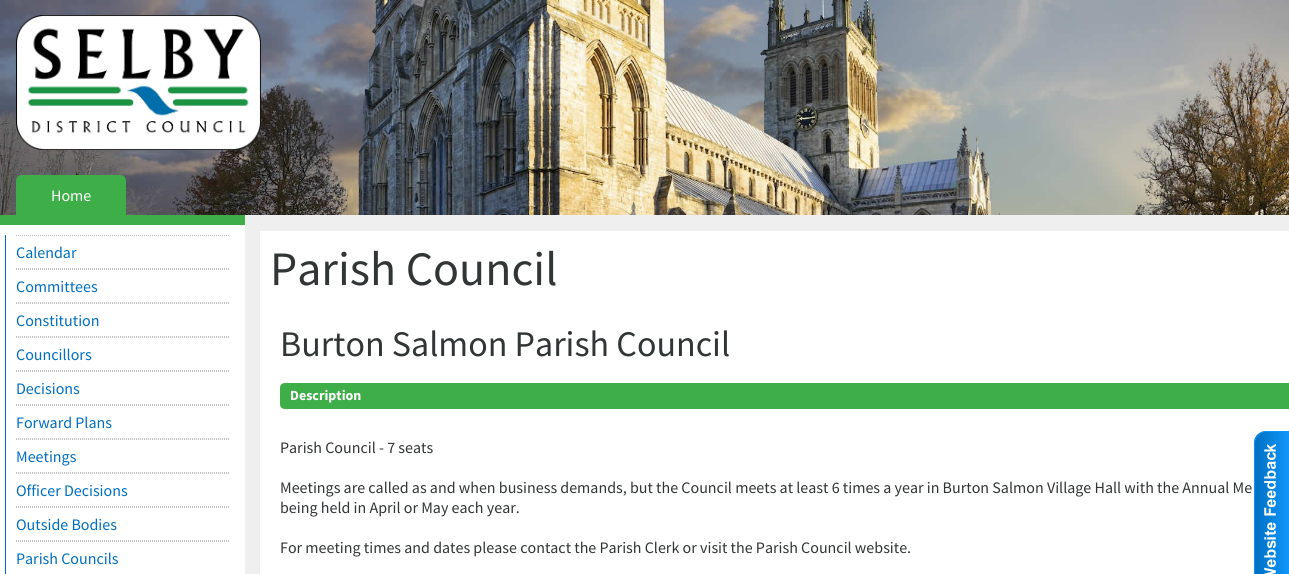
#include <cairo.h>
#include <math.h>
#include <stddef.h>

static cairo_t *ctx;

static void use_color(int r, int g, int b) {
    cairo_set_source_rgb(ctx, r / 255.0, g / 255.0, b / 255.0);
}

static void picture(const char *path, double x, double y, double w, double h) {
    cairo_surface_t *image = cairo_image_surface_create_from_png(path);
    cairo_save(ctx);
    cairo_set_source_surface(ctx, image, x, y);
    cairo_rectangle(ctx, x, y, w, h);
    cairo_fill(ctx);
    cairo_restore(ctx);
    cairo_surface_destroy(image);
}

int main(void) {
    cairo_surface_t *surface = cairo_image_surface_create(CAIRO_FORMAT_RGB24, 1289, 574);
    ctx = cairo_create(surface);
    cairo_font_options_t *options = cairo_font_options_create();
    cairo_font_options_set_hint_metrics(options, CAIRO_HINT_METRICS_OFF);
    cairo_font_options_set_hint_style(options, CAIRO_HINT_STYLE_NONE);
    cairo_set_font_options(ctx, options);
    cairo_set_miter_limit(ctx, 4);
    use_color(239, 239, 239);
    cairo_paint(ctx);
    picture("img1.png", 0, 0, 1289, 215);
    picture("img2.png", 16, 15, 245, 135);
    use_color(61, 174, 72);
    cairo_new_path(ctx);
    cairo_move_to(ctx, 22, 175);
    cairo_line_to(ctx, 120, 175);
    cairo_curve_to(ctx, 123.5, 175, 126, 177.5, 126, 181);
    cairo_line_to(ctx, 126, 215);
    cairo_line_to(ctx, 16, 215);
    cairo_line_to(ctx, 16, 181);
    cairo_curve_to(ctx, 16, 177.5, 18.5, 175, 22, 175);
    cairo_close_path(ctx);
    cairo_fill(ctx);
    cairo_select_font_face(ctx, "Source Sans Pro", CAIRO_FONT_SLANT_NORMAL, CAIRO_FONT_WEIGHT_NORMAL);
    cairo_set_font_size(ctx, 16);
    use_color(255, 255, 255);
    cairo_move_to(ctx, 51, 201);
    cairo_show_text(ctx, "Home");
    cairo_rectangle(ctx, 0, 225, 245, 349);
    cairo_fill(ctx);
    use_color(61, 174, 72);
    cairo_rectangle(ctx, 0, 215, 245, 10);
    cairo_fill(ctx);
    use_color(0, 111, 193);
    cairo_rectangle(ctx, 5, 235, 1, 339);
    cairo_fill(ctx);
    cairo_new_path(ctx);
    cairo_move_to(ctx, 16, 235.5);
    cairo_line_to(ctx, 230, 235.5);
    use_color(191, 193, 195);
    cairo_set_line_width(ctx, 1);
    cairo_set_dash(ctx, (double[]){1, 1}, 2, 0);
    cairo_stroke(ctx);
    cairo_new_path(ctx);
    cairo_move_to(ctx, 16, 268.5);
    cairo_line_to(ctx, 230, 268.5);
    cairo_stroke(ctx);
    use_color(0, 111, 193);
    cairo_move_to(ctx, 16, 258);
    cairo_show_text(ctx, "Calendar");
    cairo_new_path(ctx);
    cairo_move_to(ctx, 16, 269.5);
    cairo_line_to(ctx, 230, 269.5);
    use_color(191, 193, 195);
    cairo_stroke(ctx);
    cairo_new_path(ctx);
    cairo_move_to(ctx, 16, 302.5);
    cairo_line_to(ctx, 230, 302.5);
    cairo_stroke(ctx);
    use_color(0, 111, 193);
    cairo_move_to(ctx, 16, 292);
    cairo_show_text(ctx, "Committees");
    cairo_new_path(ctx);
    cairo_move_to(ctx, 16, 303.5);
    cairo_line_to(ctx, 230, 303.5);
    use_color(191, 193, 195);
    cairo_stroke(ctx);
    cairo_new_path(ctx);
    cairo_move_to(ctx, 16, 336.5);
    cairo_line_to(ctx, 230, 336.5);
    cairo_stroke(ctx);
    use_color(0, 111, 193);
    cairo_move_to(ctx, 16, 326);
    cairo_show_text(ctx, "Constitution");
    cairo_new_path(ctx);
    cairo_move_to(ctx, 16, 337.5);
    cairo_line_to(ctx, 230, 337.5);
    use_color(191, 193, 195);
    cairo_stroke(ctx);
    cairo_new_path(ctx);
    cairo_move_to(ctx, 16, 370.5);
    cairo_line_to(ctx, 230, 370.5);
    cairo_stroke(ctx);
    use_color(0, 111, 193);
    cairo_move_to(ctx, 16, 360);
    cairo_show_text(ctx, "Councillors");
    cairo_new_path(ctx);
    cairo_move_to(ctx, 16, 371.5);
    cairo_line_to(ctx, 230, 371.5);
    use_color(191, 193, 195);
    cairo_stroke(ctx);
    cairo_new_path(ctx);
    cairo_move_to(ctx, 16, 404.5);
    cairo_line_to(ctx, 230, 404.5);
    cairo_stroke(ctx);
    use_color(0, 111, 193);
    cairo_move_to(ctx, 16, 394);
    cairo_show_text(ctx, "Decisions");
    cairo_new_path(ctx);
    cairo_move_to(ctx, 16, 405.5);
    cairo_line_to(ctx, 230, 405.5);
    use_color(191, 193, 195);
    cairo_stroke(ctx);
    cairo_new_path(ctx);
    cairo_move_to(ctx, 16, 438.5);
    cairo_line_to(ctx, 230, 438.5);
    cairo_stroke(ctx);
    use_color(0, 111, 193);
    cairo_move_to(ctx, 16, 428);
    cairo_show_text(ctx, "Forward Plans");
    cairo_new_path(ctx);
    cairo_move_to(ctx, 16, 439.5);
    cairo_line_to(ctx, 230, 439.5);
    use_color(191, 193, 195);
    cairo_stroke(ctx);
    cairo_new_path(ctx);
    cairo_move_to(ctx, 16, 472.5);
    cairo_line_to(ctx, 230, 472.5);
    cairo_stroke(ctx);
    use_color(0, 111, 193);
    cairo_move_to(ctx, 16, 462);
    cairo_show_text(ctx, "Meetings");
    cairo_new_path(ctx);
    cairo_move_to(ctx, 16, 473.5);
    cairo_line_to(ctx, 230, 473.5);
    use_color(191, 193, 195);
    cairo_stroke(ctx);
    cairo_new_path(ctx);
    cairo_move_to(ctx, 16, 506.5);
    cairo_line_to(ctx, 230, 506.5);
    cairo_stroke(ctx);
    use_color(0, 111, 193);
    cairo_move_to(ctx, 16, 496);
    cairo_show_text(ctx, "Officer Decisions");
    cairo_new_path(ctx);
    cairo_move_to(ctx, 16, 507.5);
    cairo_line_to(ctx, 230, 507.5);
    use_color(191, 193, 195);
    cairo_stroke(ctx);
    cairo_new_path(ctx);
    cairo_move_to(ctx, 16, 540.5);
    cairo_line_to(ctx, 230, 540.5);
    cairo_stroke(ctx);
    use_color(0, 111, 193);
    cairo_move_to(ctx, 16, 530);
    cairo_show_text(ctx, "Outside Bodies");
    cairo_new_path(ctx);
    cairo_move_to(ctx, 16, 541.5);
    cairo_line_to(ctx, 230, 541.5);
    use_color(191, 193, 195);
    cairo_stroke(ctx);
    use_color(0, 111, 193);
    cairo_move_to(ctx, 16, 564);
    cairo_show_text(ctx, "Parish Councils");
    use_color(255, 255, 255);
    cairo_rectangle(ctx, 260, 231, 1029, 343);
    cairo_fill(ctx);
    cairo_set_font_size(ctx, 48);
    use_color(49, 53, 53);
    cairo_move_to(ctx, 270, 285);
    cairo_show_text(ctx, "Parish Council");
    cairo_set_font_size(ctx, 36);
    cairo_move_to(ctx, 280, 356);
    cairo_show_text(ctx, "Burton Salmon Parish Council");
    use_color(61, 174, 72);
    cairo_new_path(ctx);
    cairo_move_to(ctx, 285, 383);
    cairo_line_to(ctx, 1289, 383);
    cairo_line_to(ctx, 1289, 409);
    cairo_line_to(ctx, 285, 409);
    cairo_curve_to(ctx, 282, 409, 280, 407, 280, 404);
    cairo_line_to(ctx, 280, 388);
    cairo_curve_to(ctx, 280, 385, 282, 383, 285, 383);
    cairo_close_path(ctx);
    cairo_fill(ctx);
    cairo_select_font_face(ctx, "Source Sans Pro", CAIRO_FONT_SLANT_NORMAL, CAIRO_FONT_WEIGHT_BOLD);
    cairo_set_font_size(ctx, 14);
    use_color(255, 255, 255);
    cairo_move_to(ctx, 290, 400);
    cairo_show_text(ctx, "Description");
    cairo_select_font_face(ctx, "Source Sans Pro", CAIRO_FONT_SLANT_NORMAL, CAIRO_FONT_WEIGHT_NORMAL);
    cairo_set_font_size(ctx, 16);
    use_color(49, 53, 53);
    cairo_move_to(ctx, 280, 453);
    cairo_show_text(ctx, "Parish Council - 7 seats");
    cairo_move_to(ctx, 280, 493);
    cairo_show_text(ctx, "Meetings are called as and when business demands, but the Council meets at least 6 times a year in Burton Salmon Village Hall with the Annual Me");
    cairo_move_to(ctx, 280, 513);
    cairo_show_text(ctx, "being held in April or May each year.");
    cairo_move_to(ctx, 280, 553);
    cairo_show_text(ctx, "For meeting times and dates please contact the Parish Clerk or visit the Parish Council website.");
    picture("img3.png", 1254, 431, 35, 143);
    cairo_surface_write_to_png(surface, "result.png");
    cairo_font_options_destroy(options);
    cairo_destroy(ctx);
    cairo_surface_destroy(surface);
    return 0;
}
